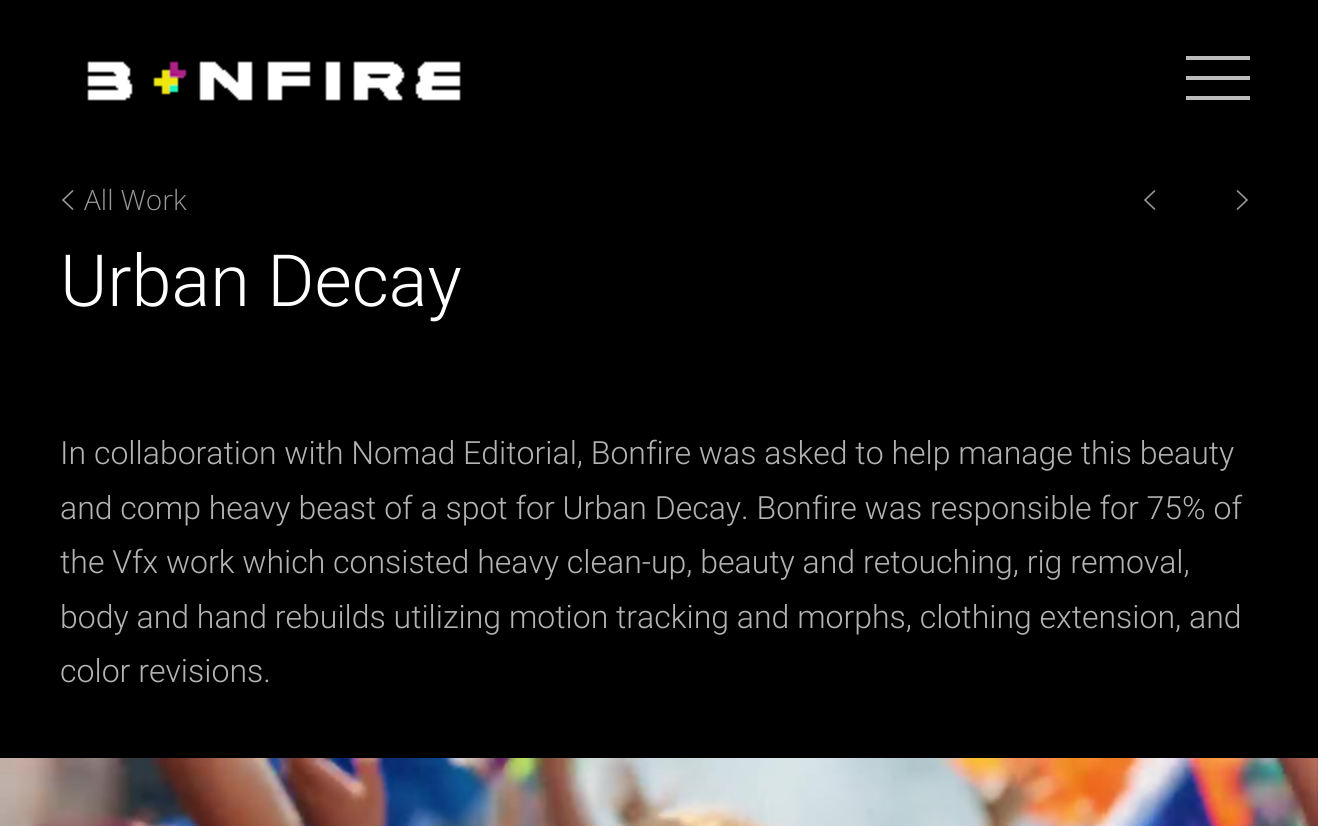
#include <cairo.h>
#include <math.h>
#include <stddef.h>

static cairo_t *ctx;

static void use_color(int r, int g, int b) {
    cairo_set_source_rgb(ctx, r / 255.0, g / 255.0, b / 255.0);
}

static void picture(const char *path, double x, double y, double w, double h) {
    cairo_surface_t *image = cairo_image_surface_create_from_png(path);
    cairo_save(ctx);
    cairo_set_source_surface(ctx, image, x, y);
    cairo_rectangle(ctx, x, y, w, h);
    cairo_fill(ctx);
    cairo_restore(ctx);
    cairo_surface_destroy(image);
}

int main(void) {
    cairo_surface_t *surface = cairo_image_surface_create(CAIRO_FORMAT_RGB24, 1318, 826);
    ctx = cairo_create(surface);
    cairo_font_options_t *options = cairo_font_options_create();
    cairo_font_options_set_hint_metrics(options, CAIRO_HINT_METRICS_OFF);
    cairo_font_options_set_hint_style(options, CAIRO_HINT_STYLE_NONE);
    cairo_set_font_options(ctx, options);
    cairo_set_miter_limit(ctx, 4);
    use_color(0, 0, 0);
    cairo_paint(ctx);
    picture("img1.png", 87, 61, 374, 40);
    use_color(187, 187, 187);
    cairo_rectangle(ctx, 1186, 56, 64, 4);
    cairo_fill(ctx);
    cairo_rectangle(ctx, 1186, 76, 64, 4);
    cairo_fill(ctx);
    cairo_rectangle(ctx, 1186, 96, 64, 4);
    cairo_fill(ctx);
    cairo_new_path(ctx);
    cairo_move_to(ctx, 73, 209.5);
    cairo_line_to(ctx, 63, 200);
    cairo_line_to(ctx, 73, 190.5);
    use_color(153, 153, 153);
    cairo_set_line_width(ctx, 1.6);
    cairo_stroke(ctx);
    cairo_select_font_face(ctx, "Open Sans Light", CAIRO_FONT_SLANT_NORMAL, CAIRO_FONT_WEIGHT_NORMAL);
    cairo_set_font_size(ctx, 28);
    cairo_move_to(ctx, 84, 210);
    cairo_show_text(ctx, "All Work");
    cairo_new_path(ctx);
    cairo_move_to(ctx, 1155, 209.5);
    cairo_line_to(ctx, 1145, 200);
    cairo_line_to(ctx, 1155, 190.5);
    cairo_stroke(ctx);
    cairo_new_path(ctx);
    cairo_move_to(ctx, 1237, 190.5);
    cairo_line_to(ctx, 1247, 200);
    cairo_line_to(ctx, 1237, 209.5);
    cairo_stroke(ctx);
    cairo_select_font_face(ctx, "Roboto Light", CAIRO_FONT_SLANT_NORMAL, CAIRO_FONT_WEIGHT_NORMAL);
    cairo_set_font_size(ctx, 72);
    use_color(255, 255, 255);
    cairo_move_to(ctx, 60, 306);
    cairo_show_text(ctx, "Urban Decay");
    cairo_set_font_size(ctx, 32);
    use_color(179, 179, 179);
    cairo_move_to(ctx, 60, 464);
    cairo_show_text(ctx, "In collaboration with Nomad Editorial, Bonfire was asked to help manage this beauty");
    cairo_move_to(ctx, 60, 519);
    cairo_show_text(ctx, "and comp heavy beast of a spot for Urban Decay. Bonfire was responsible for 75% of");
    cairo_move_to(ctx, 60, 573);
    cairo_show_text(ctx, "the Vfx work which consisted heavy clean-up, beauty and retouching, rig removal,");
    cairo_move_to(ctx, 60, 628);
    cairo_show_text(ctx, "body and hand rebuilds utilizing motion tracking and morphs, clothing extension, and");
    cairo_move_to(ctx, 60, 682);
    cairo_show_text(ctx, "color revisions.");
    picture("img2.png", 0, 758, 1318, 68);
    cairo_surface_write_to_png(surface, "result.png");
    cairo_font_options_destroy(options);
    cairo_destroy(ctx);
    cairo_surface_destroy(surface);
    return 0;
}
